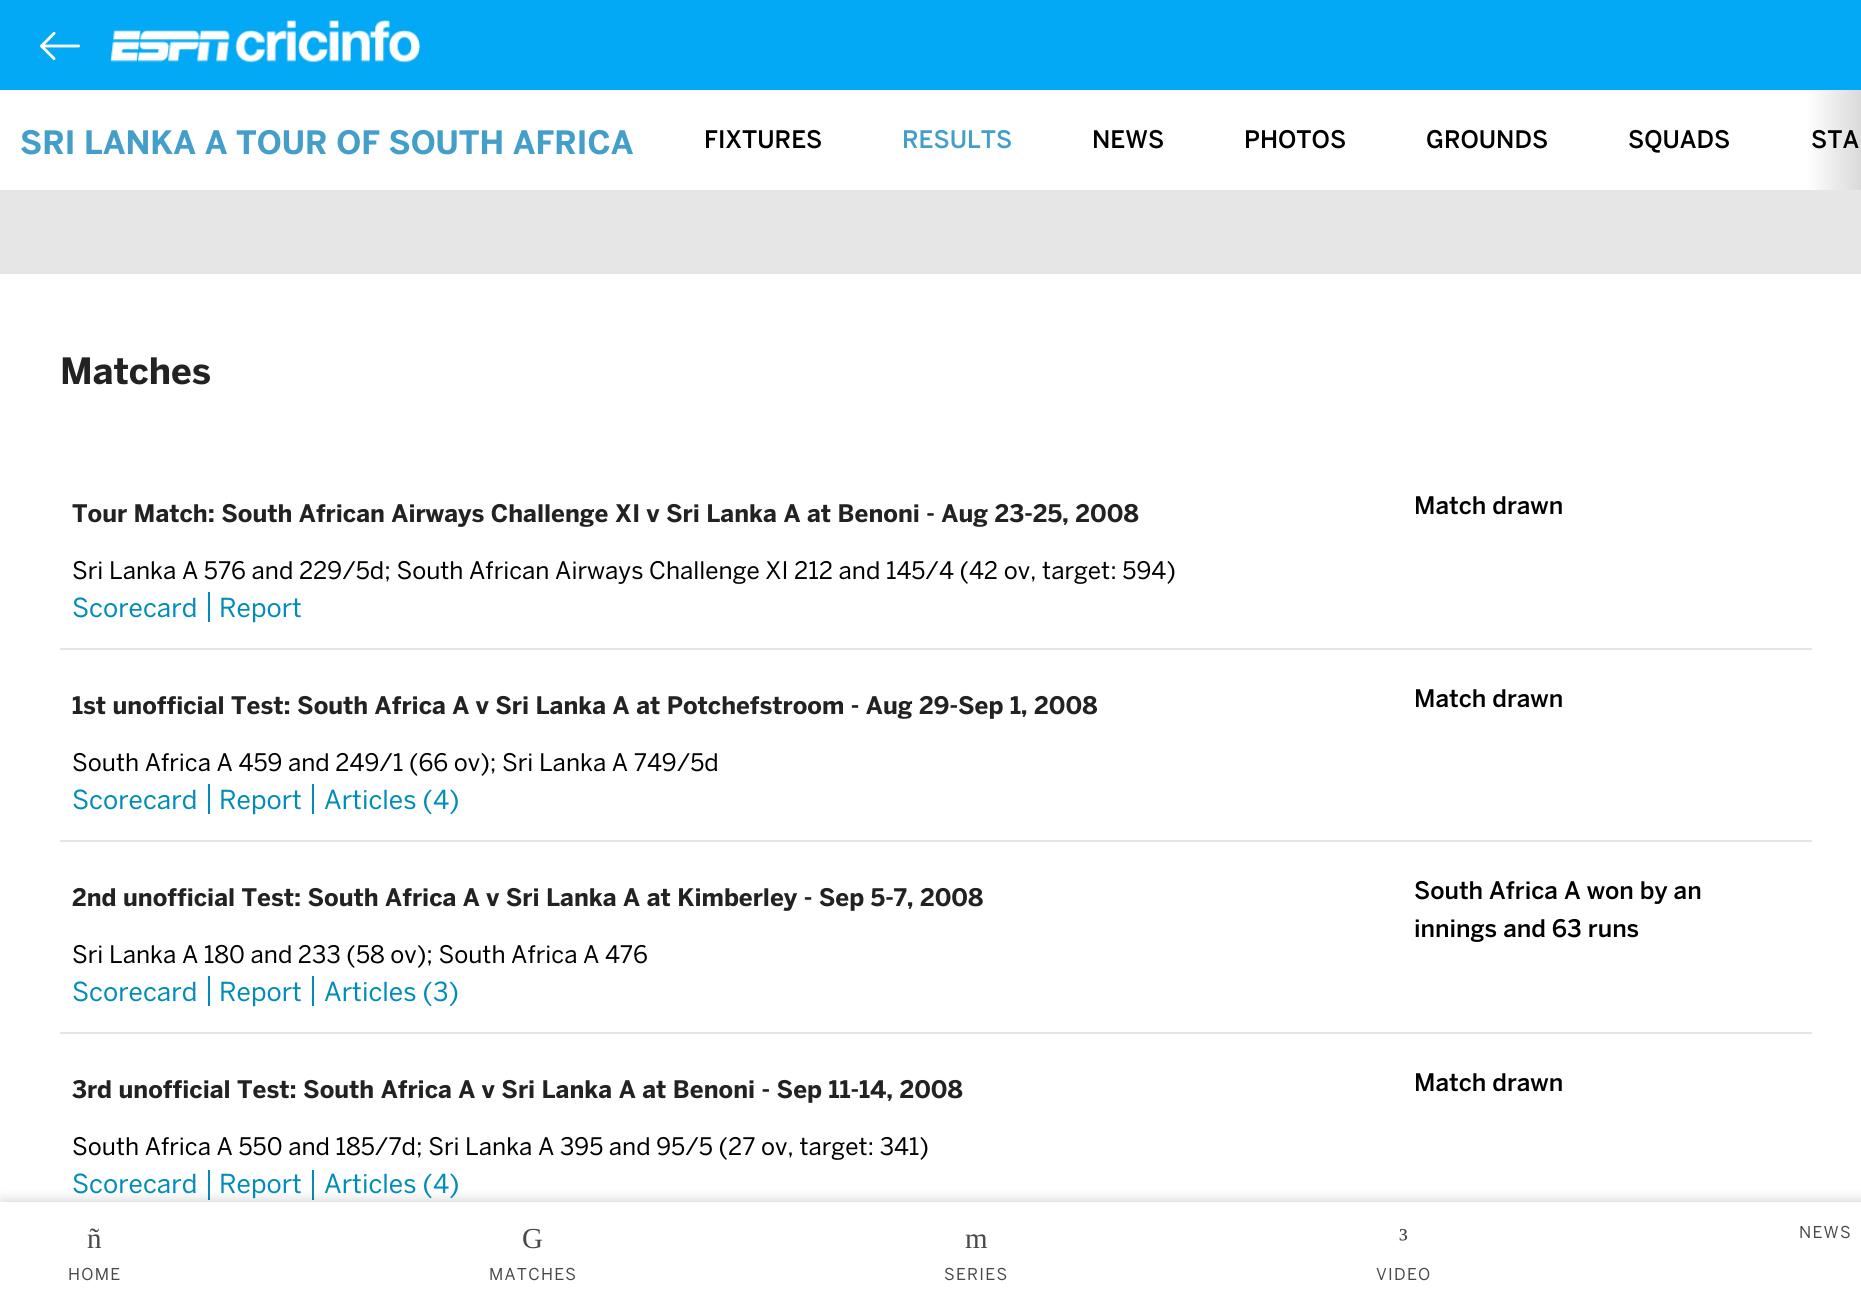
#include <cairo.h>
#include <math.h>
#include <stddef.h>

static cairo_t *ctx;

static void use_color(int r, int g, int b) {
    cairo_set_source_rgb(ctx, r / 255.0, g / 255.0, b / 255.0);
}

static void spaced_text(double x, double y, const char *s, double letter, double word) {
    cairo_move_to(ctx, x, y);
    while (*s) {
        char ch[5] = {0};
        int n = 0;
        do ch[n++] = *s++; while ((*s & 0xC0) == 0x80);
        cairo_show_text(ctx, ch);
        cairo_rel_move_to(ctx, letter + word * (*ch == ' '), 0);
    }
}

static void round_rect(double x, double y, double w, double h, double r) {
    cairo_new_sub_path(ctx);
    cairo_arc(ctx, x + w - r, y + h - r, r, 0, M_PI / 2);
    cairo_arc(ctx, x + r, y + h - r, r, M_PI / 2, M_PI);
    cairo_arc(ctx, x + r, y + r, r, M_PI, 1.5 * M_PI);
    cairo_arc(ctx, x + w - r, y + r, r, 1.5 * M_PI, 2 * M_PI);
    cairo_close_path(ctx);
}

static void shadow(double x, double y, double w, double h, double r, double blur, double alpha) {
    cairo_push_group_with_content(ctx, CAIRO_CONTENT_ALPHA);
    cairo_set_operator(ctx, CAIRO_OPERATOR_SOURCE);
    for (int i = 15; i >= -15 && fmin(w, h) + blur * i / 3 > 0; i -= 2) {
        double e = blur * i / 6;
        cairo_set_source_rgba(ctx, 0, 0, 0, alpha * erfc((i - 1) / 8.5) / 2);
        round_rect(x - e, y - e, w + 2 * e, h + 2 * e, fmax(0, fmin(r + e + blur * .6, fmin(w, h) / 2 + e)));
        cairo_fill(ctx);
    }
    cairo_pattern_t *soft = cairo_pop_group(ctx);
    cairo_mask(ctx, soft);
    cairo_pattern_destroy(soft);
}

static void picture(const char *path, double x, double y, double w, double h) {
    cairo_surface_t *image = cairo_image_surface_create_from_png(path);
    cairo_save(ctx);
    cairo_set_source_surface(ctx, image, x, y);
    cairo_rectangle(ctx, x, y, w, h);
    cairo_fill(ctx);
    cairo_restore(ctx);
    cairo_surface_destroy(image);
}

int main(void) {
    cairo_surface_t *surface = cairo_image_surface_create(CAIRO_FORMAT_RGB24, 1861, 1304);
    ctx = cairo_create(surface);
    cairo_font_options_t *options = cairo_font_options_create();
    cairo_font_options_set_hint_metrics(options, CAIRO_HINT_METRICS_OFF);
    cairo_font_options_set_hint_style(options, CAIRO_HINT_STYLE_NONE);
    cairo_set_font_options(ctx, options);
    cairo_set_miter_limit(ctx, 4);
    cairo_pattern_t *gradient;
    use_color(230, 230, 230);
    cairo_paint(ctx);
    use_color(3, 169, 244);
    cairo_rectangle(ctx, 0, 0, 1861, 90);
    cairo_fill(ctx);
    picture("img1.png", 40, 32, 40, 28);
    picture("img2.png", 110, 20, 311, 43);
    gradient = cairo_pattern_create_linear(0, 140, 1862, 140);
    cairo_pattern_add_color_stop_rgba(gradient, 0.96, 1, 1, 1, 1);
    cairo_pattern_add_color_stop_rgba(gradient, 0.97, 1, 1, 1, 1);
    cairo_pattern_add_color_stop_rgba(gradient, 1, 0.851, 0.851, 0.851, 1);
    cairo_set_source(ctx, gradient);
    cairo_pattern_destroy(gradient);
    cairo_rectangle(ctx, 0, 90, 1861, 100);
    cairo_fill(ctx);
    cairo_select_font_face(ctx, "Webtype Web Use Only", CAIRO_FONT_SLANT_NORMAL, CAIRO_FONT_WEIGHT_BOLD);
    cairo_set_font_size(ctx, 32);
    use_color(67, 158, 201);
    cairo_move_to(ctx, 20, 154);
    cairo_show_text(ctx, "SRI LANKA A TOUR OF SOUTH AFRICA");
    cairo_select_font_face(ctx, "Webtype Web Use Only Medium", CAIRO_FONT_SLANT_NORMAL, CAIRO_FONT_WEIGHT_NORMAL);
    cairo_set_font_size(ctx, 24);
    use_color(0, 0, 0);
    cairo_move_to(ctx, 704, 148);
    cairo_show_text(ctx, "FIXTURES");
    use_color(67, 158, 201);
    cairo_move_to(ctx, 902, 148);
    cairo_show_text(ctx, "RESULTS");
    use_color(0, 0, 0);
    cairo_move_to(ctx, 1092, 148);
    cairo_show_text(ctx, "NEWS");
    cairo_move_to(ctx, 1244, 148);
    cairo_show_text(ctx, "PHOTOS");
    cairo_move_to(ctx, 1426, 148);
    cairo_show_text(ctx, "GROUNDS");
    cairo_move_to(ctx, 1628, 148);
    cairo_show_text(ctx, "SQUADS");
    cairo_move_to(ctx, 1811, 148);
    cairo_show_text(ctx, "STA");
    use_color(255, 255, 255);
    cairo_rectangle(ctx, 0, 274, 1861, 928);
    cairo_fill(ctx);
    use_color(0, 140, 186);
    cairo_rectangle(ctx, 208, 1170, 2, 30);
    cairo_fill(ctx);
    cairo_rectangle(ctx, 312, 1170, 2, 30);
    cairo_fill(ctx);
    use_color(0, 0, 0);
    shadow(2, 1200, 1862, 102, 0, 6, 0.16);
    use_color(255, 255, 255);
    cairo_rectangle(ctx, 0, 1202, 1861, 102);
    cairo_fill(ctx);
    cairo_select_font_face(ctx, "Liberation Serif", CAIRO_FONT_SLANT_NORMAL, CAIRO_FONT_WEIGHT_NORMAL);
    cairo_set_font_size(ctx, 29);
    use_color(72, 73, 74);
    cairo_move_to(ctx, 87, 1248);
    cairo_show_text(ctx, "ñ");
    cairo_select_font_face(ctx, "Webtype Web Use Only", CAIRO_FONT_SLANT_NORMAL, CAIRO_FONT_WEIGHT_NORMAL);
    cairo_set_font_size(ctx, 16.25);
    spaced_text(68, 1280, "HOME", 1.25, 0);
    cairo_select_font_face(ctx, "Liberation Serif", CAIRO_FONT_SLANT_NORMAL, CAIRO_FONT_WEIGHT_NORMAL);
    cairo_set_font_size(ctx, 29);
    cairo_move_to(ctx, 522, 1248);
    cairo_show_text(ctx, "G");
    cairo_select_font_face(ctx, "Webtype Web Use Only", CAIRO_FONT_SLANT_NORMAL, CAIRO_FONT_WEIGHT_NORMAL);
    cairo_set_font_size(ctx, 16.25);
    spaced_text(489, 1280, "MATCHES", 1.25, 0);
    cairo_select_font_face(ctx, "Liberation Serif", CAIRO_FONT_SLANT_NORMAL, CAIRO_FONT_WEIGHT_NORMAL);
    cairo_set_font_size(ctx, 29);
    cairo_move_to(ctx, 965, 1248);
    cairo_show_text(ctx, "m");
    cairo_select_font_face(ctx, "Webtype Web Use Only", CAIRO_FONT_SLANT_NORMAL, CAIRO_FONT_WEIGHT_NORMAL);
    cairo_set_font_size(ctx, 16.25);
    spaced_text(944, 1280, "SERIES", 1.25, 0);
    cairo_select_font_face(ctx, "Liberation Serif", CAIRO_FONT_SLANT_NORMAL, CAIRO_FONT_WEIGHT_NORMAL);
    cairo_set_font_size(ctx, 29);
    cairo_move_to(ctx, 1399, 1248);
    cairo_show_text(ctx, "³");
    cairo_select_font_face(ctx, "Webtype Web Use Only", CAIRO_FONT_SLANT_NORMAL, CAIRO_FONT_WEIGHT_NORMAL);
    cairo_set_font_size(ctx, 16.25);
    spaced_text(1376, 1280, "VIDEO", 1.25, 0);
    spaced_text(1799, 1238, "NEWS", 1.25, 0);
    cairo_select_font_face(ctx, "Webtype Web Use Only", CAIRO_FONT_SLANT_NORMAL, CAIRO_FONT_WEIGHT_BOLD);
    cairo_set_font_size(ctx, 36);
    use_color(34, 34, 34);
    cairo_move_to(ctx, 60, 384);
    cairo_show_text(ctx, "Matches");
    cairo_set_font_size(ctx, 24);
    cairo_move_to(ctx, 72, 522);
    cairo_show_text(ctx, "Tour Match: South African Airways Challenge XI v Sri Lanka A at Benoni - Aug 23-25, 2008");
    cairo_select_font_face(ctx, "Webtype Web Use Only", CAIRO_FONT_SLANT_NORMAL, CAIRO_FONT_WEIGHT_NORMAL);
    use_color(0, 0, 0);
    cairo_move_to(ctx, 72, 579);
    cairo_show_text(ctx, "Sri Lanka A 576 and 229/5d; South African Airways Challenge XI 212 and 145/4 (42 ov, target: 594)");
    use_color(0, 140, 186);
    cairo_rectangle(ctx, 208, 592, 2, 30);
    cairo_fill(ctx);
    cairo_set_font_size(ctx, 26);
    cairo_move_to(ctx, 72, 617);
    cairo_show_text(ctx, "Scorecard");
    cairo_move_to(ctx, 219, 617);
    cairo_show_text(ctx, "Report");
    cairo_select_font_face(ctx, "Webtype Web Use Only Medium", CAIRO_FONT_SLANT_NORMAL, CAIRO_FONT_WEIGHT_NORMAL);
    cairo_set_font_size(ctx, 24);
    use_color(0, 0, 0);
    cairo_move_to(ctx, 1414, 514);
    cairo_show_text(ctx, "Match drawn");
    use_color(229, 229, 229);
    cairo_rectangle(ctx, 60, 648, 1752, 2);
    cairo_fill(ctx);
    cairo_select_font_face(ctx, "Webtype Web Use Only", CAIRO_FONT_SLANT_NORMAL, CAIRO_FONT_WEIGHT_BOLD);
    use_color(34, 34, 34);
    cairo_move_to(ctx, 72, 714);
    cairo_show_text(ctx, "1st unofficial Test: South Africa A v Sri Lanka A at Potchefstroom - Aug 29-Sep 1, 2008");
    cairo_select_font_face(ctx, "Webtype Web Use Only", CAIRO_FONT_SLANT_NORMAL, CAIRO_FONT_WEIGHT_NORMAL);
    use_color(0, 0, 0);
    cairo_move_to(ctx, 72, 771);
    cairo_show_text(ctx, "South Africa A 459 and 249/1 (66 ov); Sri Lanka A 749/5d");
    use_color(0, 140, 186);
    cairo_rectangle(ctx, 208, 784, 2, 30);
    cairo_fill(ctx);
    cairo_set_font_size(ctx, 26);
    cairo_move_to(ctx, 72, 809);
    cairo_show_text(ctx, "Scorecard");
    cairo_rectangle(ctx, 312, 784, 2, 30);
    cairo_fill(ctx);
    cairo_move_to(ctx, 219, 809);
    cairo_show_text(ctx, "Report");
    cairo_move_to(ctx, 324, 809);
    cairo_show_text(ctx, "Articles (4)");
    cairo_select_font_face(ctx, "Webtype Web Use Only Medium", CAIRO_FONT_SLANT_NORMAL, CAIRO_FONT_WEIGHT_NORMAL);
    cairo_set_font_size(ctx, 24);
    use_color(0, 0, 0);
    cairo_move_to(ctx, 1414, 707);
    cairo_show_text(ctx, "Match drawn");
    use_color(229, 229, 229);
    cairo_rectangle(ctx, 60, 840, 1752, 2);
    cairo_fill(ctx);
    cairo_select_font_face(ctx, "Webtype Web Use Only", CAIRO_FONT_SLANT_NORMAL, CAIRO_FONT_WEIGHT_BOLD);
    use_color(34, 34, 34);
    cairo_move_to(ctx, 72, 906);
    cairo_show_text(ctx, "2nd unofficial Test: South Africa A v Sri Lanka A at Kimberley - Sep 5-7, 2008");
    cairo_select_font_face(ctx, "Webtype Web Use Only", CAIRO_FONT_SLANT_NORMAL, CAIRO_FONT_WEIGHT_NORMAL);
    use_color(0, 0, 0);
    cairo_move_to(ctx, 72, 963);
    cairo_show_text(ctx, "Sri Lanka A 180 and 233 (58 ov); South Africa A 476");
    use_color(0, 140, 186);
    cairo_rectangle(ctx, 208, 976, 2, 30);
    cairo_fill(ctx);
    cairo_set_font_size(ctx, 26);
    cairo_move_to(ctx, 72, 1001);
    cairo_show_text(ctx, "Scorecard");
    cairo_rectangle(ctx, 312, 976, 2, 30);
    cairo_fill(ctx);
    cairo_move_to(ctx, 219, 1001);
    cairo_show_text(ctx, "Report");
    cairo_move_to(ctx, 324, 1001);
    cairo_show_text(ctx, "Articles (3)");
    cairo_select_font_face(ctx, "Webtype Web Use Only Medium", CAIRO_FONT_SLANT_NORMAL, CAIRO_FONT_WEIGHT_NORMAL);
    cairo_set_font_size(ctx, 24);
    use_color(0, 0, 0);
    cairo_move_to(ctx, 1414, 899);
    cairo_show_text(ctx, "South Africa A won by an");
    cairo_move_to(ctx, 1414, 937);
    cairo_show_text(ctx, "innings and 63 runs");
    use_color(229, 229, 229);
    cairo_rectangle(ctx, 60, 1032, 1752, 2);
    cairo_fill(ctx);
    cairo_select_font_face(ctx, "Webtype Web Use Only", CAIRO_FONT_SLANT_NORMAL, CAIRO_FONT_WEIGHT_BOLD);
    use_color(34, 34, 34);
    cairo_move_to(ctx, 72, 1098);
    cairo_show_text(ctx, "3rd unofficial Test: South Africa A v Sri Lanka A at Benoni - Sep 11-14, 2008");
    cairo_select_font_face(ctx, "Webtype Web Use Only", CAIRO_FONT_SLANT_NORMAL, CAIRO_FONT_WEIGHT_NORMAL);
    use_color(0, 0, 0);
    cairo_move_to(ctx, 72, 1155);
    cairo_show_text(ctx, "South Africa A 550 and 185/7d; Sri Lanka A 395 and 95/5 (27 ov, target: 341)");
    cairo_set_font_size(ctx, 26);
    use_color(0, 140, 186);
    cairo_move_to(ctx, 72, 1193);
    cairo_show_text(ctx, "Scorecard");
    cairo_move_to(ctx, 219, 1193);
    cairo_show_text(ctx, "Report");
    cairo_move_to(ctx, 324, 1193);
    cairo_show_text(ctx, "Articles (4)");
    cairo_select_font_face(ctx, "Webtype Web Use Only Medium", CAIRO_FONT_SLANT_NORMAL, CAIRO_FONT_WEIGHT_NORMAL);
    cairo_set_font_size(ctx, 24);
    use_color(0, 0, 0);
    cairo_move_to(ctx, 1414, 1091);
    cairo_show_text(ctx, "Match drawn");
    cairo_surface_write_to_png(surface, "result.png");
    cairo_font_options_destroy(options);
    cairo_destroy(ctx);
    cairo_surface_destroy(surface);
    return 0;
}
